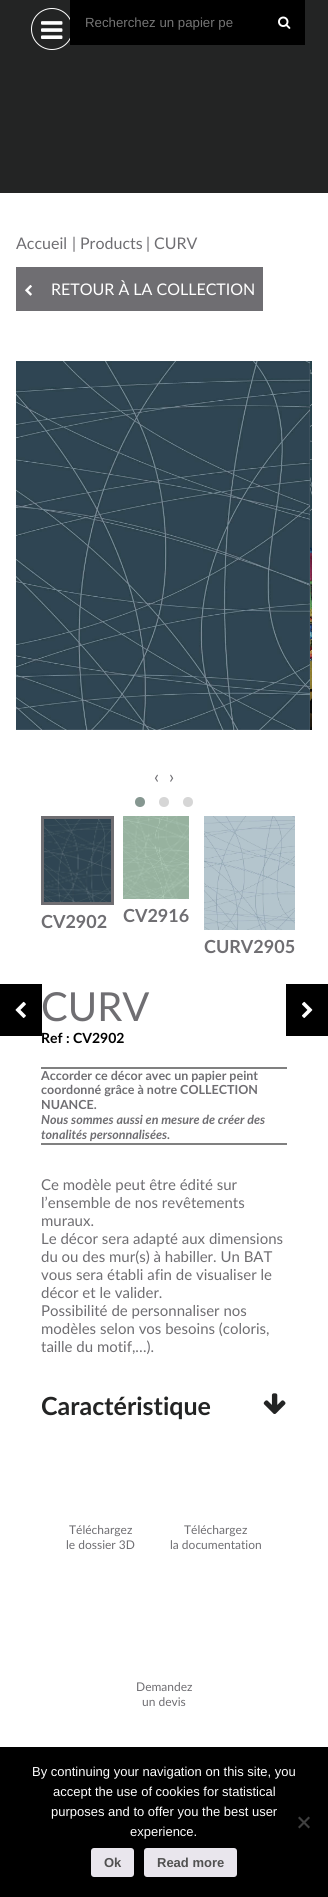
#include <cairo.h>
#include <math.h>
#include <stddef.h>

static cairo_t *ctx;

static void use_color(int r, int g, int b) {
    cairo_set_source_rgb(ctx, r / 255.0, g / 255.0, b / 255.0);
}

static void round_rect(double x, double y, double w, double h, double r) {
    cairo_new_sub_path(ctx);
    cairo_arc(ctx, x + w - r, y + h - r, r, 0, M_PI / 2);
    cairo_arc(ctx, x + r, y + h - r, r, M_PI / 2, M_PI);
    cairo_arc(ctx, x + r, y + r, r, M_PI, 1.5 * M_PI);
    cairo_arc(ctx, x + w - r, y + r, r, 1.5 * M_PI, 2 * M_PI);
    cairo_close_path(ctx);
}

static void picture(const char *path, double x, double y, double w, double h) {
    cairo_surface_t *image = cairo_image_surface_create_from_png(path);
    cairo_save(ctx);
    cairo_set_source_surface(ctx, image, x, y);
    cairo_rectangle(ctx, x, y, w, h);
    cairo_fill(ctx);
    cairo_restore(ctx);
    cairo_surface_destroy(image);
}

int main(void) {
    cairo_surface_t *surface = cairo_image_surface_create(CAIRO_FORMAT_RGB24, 328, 1897);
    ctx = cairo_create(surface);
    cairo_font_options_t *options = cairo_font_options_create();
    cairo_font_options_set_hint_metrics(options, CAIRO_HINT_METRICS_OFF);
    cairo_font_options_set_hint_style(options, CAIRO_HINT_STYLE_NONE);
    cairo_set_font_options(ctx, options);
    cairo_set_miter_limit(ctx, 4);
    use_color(255, 255, 255);
    cairo_paint(ctx);
    use_color(35, 36, 36);
    cairo_rectangle(ctx, 0, 0, 328, 193);
    cairo_fill(ctx);
    cairo_arc(ctx, 52, 29, 20.5, 0, 2 * M_PI);
    use_color(255, 255, 255);
    cairo_set_line_width(ctx, 1);
    cairo_stroke(ctx);
    picture("img1.png", 41, 21, 22, 18);
    use_color(0, 0, 0);
    cairo_rectangle(ctx, 70, 0, 235, 45);
    cairo_fill(ctx);
    cairo_select_font_face(ctx, "Liberation Sans", CAIRO_FONT_SLANT_NORMAL, CAIRO_FONT_WEIGHT_NORMAL);
    cairo_set_font_size(ctx, 13.25);
    use_color(117, 117, 117);
    cairo_move_to(ctx, 85, 27);
    cairo_show_text(ctx, "Recherchez un papier pe");
    picture("img2.png", 278, 16, 13, 13);
    cairo_select_font_face(ctx, "Lato", CAIRO_FONT_SLANT_NORMAL, CAIRO_FONT_WEIGHT_NORMAL);
    cairo_set_font_size(ctx, 16);
    use_color(111, 110, 114);
    cairo_move_to(ctx, 16, 249);
    cairo_show_text(ctx, "Accueil");
    cairo_move_to(ctx, 72, 249);
    cairo_show_text(ctx, "|");
    cairo_move_to(ctx, 80, 249);
    cairo_show_text(ctx, "Products");
    cairo_move_to(ctx, 146, 249);
    cairo_show_text(ctx, "| CURV");
    cairo_rectangle(ctx, 16, 267, 247, 44);
    cairo_fill(ctx);
    picture("img3.png", 25, 285, 7, 11);
    use_color(255, 255, 255);
    cairo_move_to(ctx, 51, 295);
    cairo_show_text(ctx, "RETOUR À LA COLLECTION");
    picture("img4.png", 16, 361, 294, 369);
    picture("img5.png", 310, 361, 2, 369);
    cairo_set_font_size(ctx, 18);
    use_color(111, 110, 114);
    cairo_move_to(ctx, 154, 783);
    cairo_show_text(ctx, "‹");
    cairo_move_to(ctx, 169, 783);
    cairo_show_text(ctx, "›");
    use_color(134, 151, 145);
    cairo_new_path(ctx);
    cairo_arc(ctx, 140, 802, 5, 0, 2 * M_PI);
    cairo_fill(ctx);
    use_color(214, 214, 214);
    cairo_arc(ctx, 164, 802, 5, 0, 2 * M_PI);
    cairo_fill(ctx);
    cairo_arc(ctx, 188, 802, 5, 0, 2 * M_PI);
    cairo_fill(ctx);
    cairo_rectangle(ctx, 42.5, 817.5, 70, 86);
    use_color(111, 110, 114);
    cairo_set_line_width(ctx, 3);
    cairo_stroke(ctx);
    picture("img6.png", 44, 819, 67, 83);
    cairo_select_font_face(ctx, "Lato", CAIRO_FONT_SLANT_NORMAL, CAIRO_FONT_WEIGHT_BOLD);
    cairo_move_to(ctx, 41, 928);
    cairo_show_text(ctx, "CV2902");
    picture("img7.png", 123, 816, 66, 83);
    cairo_move_to(ctx, 123, 922);
    cairo_show_text(ctx, "CV2916");
    picture("img8.png", 204, 816, 91, 114);
    cairo_move_to(ctx, 204, 953);
    cairo_show_text(ctx, "CURV2905");
    cairo_select_font_face(ctx, "Lato", CAIRO_FONT_SLANT_NORMAL, CAIRO_FONT_WEIGHT_NORMAL);
    cairo_set_font_size(ctx, 40);
    cairo_move_to(ctx, 41, 1021);
    cairo_show_text(ctx, "CURV");
    cairo_select_font_face(ctx, "Lato", CAIRO_FONT_SLANT_NORMAL, CAIRO_FONT_WEIGHT_BOLD);
    cairo_set_font_size(ctx, 14);
    use_color(0, 0, 0);
    cairo_move_to(ctx, 41, 1043);
    cairo_show_text(ctx, "Ref : CV2902");
    use_color(128, 128, 128);
    cairo_rectangle(ctx, 41, 1067, 246, 2);
    cairo_fill(ctx);
    cairo_set_font_size(ctx, 12.5);
    use_color(111, 110, 114);
    cairo_move_to(ctx, 41, 1080);
    cairo_show_text(ctx, "Accorder ce décor avec un papier peint");
    cairo_move_to(ctx, 41, 1094);
    cairo_show_text(ctx, "coordonné grâce à notre COLLECTION");
    cairo_move_to(ctx, 41, 1109);
    cairo_show_text(ctx, "NUANCE.");
    cairo_select_font_face(ctx, "Lato", CAIRO_FONT_SLANT_ITALIC, CAIRO_FONT_WEIGHT_BOLD);
    cairo_move_to(ctx, 41, 1124);
    cairo_show_text(ctx, "Nous sommes aussi en mesure de créer des");
    cairo_move_to(ctx, 41, 1139);
    cairo_show_text(ctx, "tonalités personnalisées.");
    use_color(128, 128, 128);
    cairo_rectangle(ctx, 41, 1143, 246, 2);
    cairo_fill(ctx);
    cairo_select_font_face(ctx, "Lato", CAIRO_FONT_SLANT_NORMAL, CAIRO_FONT_WEIGHT_NORMAL);
    cairo_set_font_size(ctx, 15);
    use_color(111, 110, 114);
    cairo_move_to(ctx, 41, 1190);
    cairo_show_text(ctx, "Ce modèle peut être édité sur");
    cairo_move_to(ctx, 41, 1208);
    cairo_show_text(ctx, "l’ensemble de nos revêtements");
    cairo_move_to(ctx, 41, 1226);
    cairo_show_text(ctx, "muraux.");
    cairo_move_to(ctx, 41, 1244);
    cairo_show_text(ctx, "Le décor sera adapté aux dimensions");
    cairo_move_to(ctx, 41, 1262);
    cairo_show_text(ctx, "du ou des mur(s) à habiller. Un BAT");
    cairo_move_to(ctx, 41, 1280);
    cairo_show_text(ctx, "vous sera établi afin de visualiser le");
    cairo_move_to(ctx, 41, 1298);
    cairo_show_text(ctx, "décor et le valider.");
    cairo_move_to(ctx, 41, 1316);
    cairo_show_text(ctx, "Possibilité de personnaliser nos");
    cairo_move_to(ctx, 41, 1334);
    cairo_show_text(ctx, "modèles selon vos besoins (coloris,");
    cairo_move_to(ctx, 41, 1352);
    cairo_show_text(ctx, "taille du motif,…).");
    cairo_select_font_face(ctx, "Lato", CAIRO_FONT_SLANT_NORMAL, CAIRO_FONT_WEIGHT_BOLD);
    cairo_set_font_size(ctx, 25);
    use_color(35, 36, 36);
    cairo_move_to(ctx, 41, 1415);
    cairo_show_text(ctx, "Caractéristique");
    picture("img9.png", 263, 1393, 23, 21);
    cairo_select_font_face(ctx, "Lato", CAIRO_FONT_SLANT_NORMAL, CAIRO_FONT_WEIGHT_NORMAL);
    cairo_set_font_size(ctx, 12);
    use_color(111, 110, 114);
    cairo_move_to(ctx, 69, 1534);
    cairo_show_text(ctx, "Téléchargez");
    cairo_move_to(ctx, 66, 1549);
    cairo_show_text(ctx, "le dossier 3D");
    cairo_move_to(ctx, 184, 1534);
    cairo_show_text(ctx, "Téléchargez");
    cairo_move_to(ctx, 170, 1549);
    cairo_show_text(ctx, "la documentation");
    cairo_move_to(ctx, 136, 1691);
    cairo_show_text(ctx, "Demandez");
    cairo_move_to(ctx, 142, 1706);
    cairo_show_text(ctx, "un devis");
    use_color(0, 0, 0);
    cairo_rectangle(ctx, 0, 984, 42, 52);
    cairo_fill(ctx);
    picture("img10.png", 15, 1001, 11, 17);
    cairo_rectangle(ctx, 286, 984, 42, 52);
    cairo_fill(ctx);
    picture("img11.png", 302, 1001, 11, 17);
    cairo_rectangle(ctx, 0, 1747, 328, 150);
    cairo_fill(ctx);
    cairo_select_font_face(ctx, "Liberation Sans", CAIRO_FONT_SLANT_NORMAL, CAIRO_FONT_WEIGHT_NORMAL);
    cairo_set_font_size(ctx, 13);
    use_color(255, 255, 255);
    cairo_move_to(ctx, 32, 1776);
    cairo_show_text(ctx, "By continuing your navigation on this site, you");
    cairo_move_to(ctx, 53, 1796);
    cairo_show_text(ctx, "accept the use of cookies for statistical");
    cairo_move_to(ctx, 51, 1816);
    cairo_show_text(ctx, "purposes and to offer you the best user");
    cairo_move_to(ctx, 130, 1836);
    cairo_show_text(ctx, "experience.");
    use_color(64, 64, 64);
    cairo_new_path(ctx);
    cairo_move_to(ctx, 308.5, 1816.5);
    cairo_line_to(ctx, 310, 1818);
    cairo_line_to(ctx, 299.5, 1828.5);
    cairo_line_to(ctx, 298, 1827);
    cairo_close_path(ctx);
    cairo_fill(ctx);
    cairo_new_path(ctx);
    cairo_move_to(ctx, 298, 1818);
    cairo_line_to(ctx, 299.5, 1816.5);
    cairo_line_to(ctx, 310, 1827);
    cairo_line_to(ctx, 308.5, 1828.5);
    cairo_close_path(ctx);
    cairo_fill(ctx);
    use_color(233, 230, 237);
    round_rect(91, 1848, 43, 29, 3);
    cairo_fill(ctx);
    cairo_select_font_face(ctx, "Liberation Sans", CAIRO_FONT_SLANT_NORMAL, CAIRO_FONT_WEIGHT_BOLD);
    use_color(81, 81, 81);
    cairo_move_to(ctx, 104, 1867);
    cairo_show_text(ctx, "Ok");
    use_color(233, 230, 237);
    round_rect(144, 1848, 93, 29, 3);
    cairo_fill(ctx);
    use_color(81, 81, 81);
    cairo_move_to(ctx, 157, 1867);
    cairo_show_text(ctx, "Read more");
    cairo_surface_write_to_png(surface, "result.png");
    cairo_font_options_destroy(options);
    cairo_destroy(ctx);
    cairo_surface_destroy(surface);
    return 0;
}
